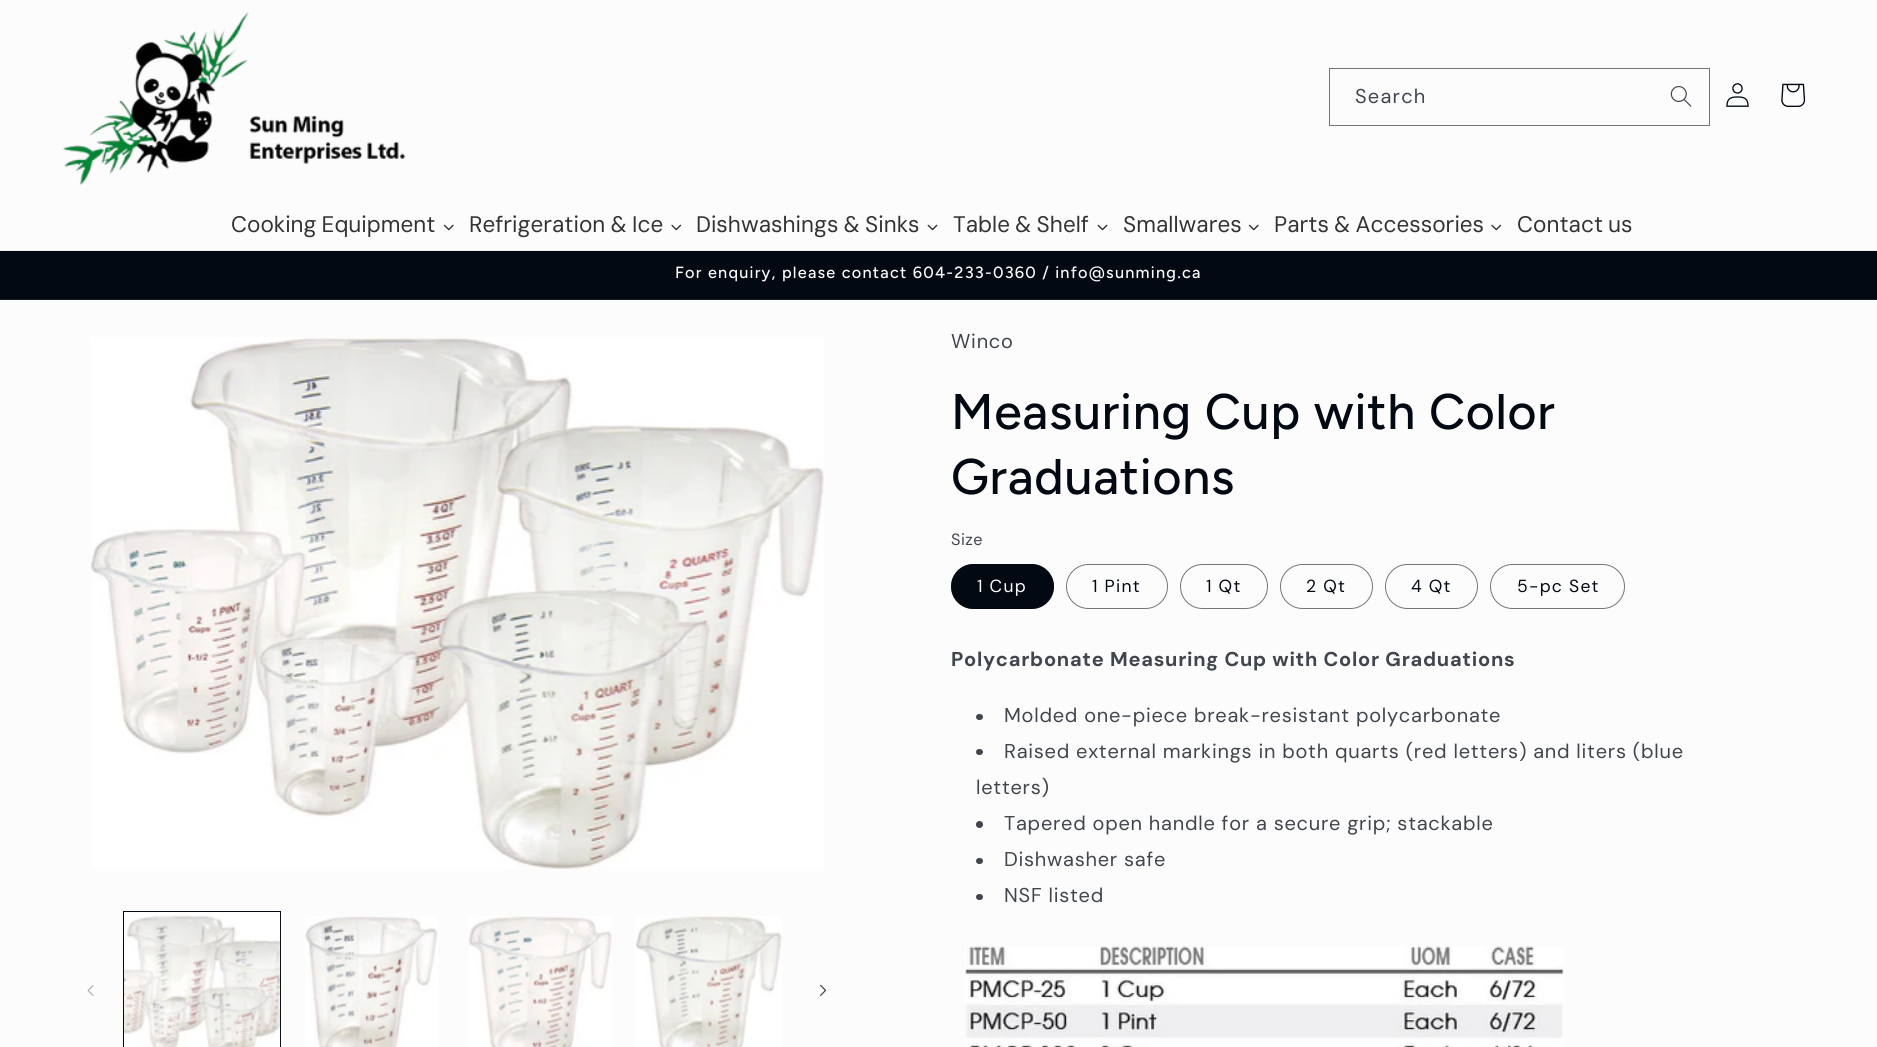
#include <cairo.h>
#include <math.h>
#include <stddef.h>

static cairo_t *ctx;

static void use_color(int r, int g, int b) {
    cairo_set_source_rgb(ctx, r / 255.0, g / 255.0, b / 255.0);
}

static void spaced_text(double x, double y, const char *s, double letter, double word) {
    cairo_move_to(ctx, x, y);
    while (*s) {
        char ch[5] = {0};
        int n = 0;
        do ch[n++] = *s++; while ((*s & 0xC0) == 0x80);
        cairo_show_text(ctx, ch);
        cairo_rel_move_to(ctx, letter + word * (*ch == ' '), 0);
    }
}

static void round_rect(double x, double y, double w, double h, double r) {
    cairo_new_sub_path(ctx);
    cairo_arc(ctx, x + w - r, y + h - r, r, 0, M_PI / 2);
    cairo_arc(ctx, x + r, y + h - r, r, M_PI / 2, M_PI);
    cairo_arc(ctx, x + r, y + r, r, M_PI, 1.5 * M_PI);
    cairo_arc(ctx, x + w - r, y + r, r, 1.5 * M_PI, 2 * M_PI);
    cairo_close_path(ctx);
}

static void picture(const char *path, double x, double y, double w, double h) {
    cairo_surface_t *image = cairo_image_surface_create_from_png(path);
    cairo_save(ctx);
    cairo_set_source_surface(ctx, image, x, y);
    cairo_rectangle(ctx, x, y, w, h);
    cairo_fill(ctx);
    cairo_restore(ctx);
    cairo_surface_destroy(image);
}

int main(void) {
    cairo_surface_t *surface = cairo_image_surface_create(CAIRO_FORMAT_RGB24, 1877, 1047);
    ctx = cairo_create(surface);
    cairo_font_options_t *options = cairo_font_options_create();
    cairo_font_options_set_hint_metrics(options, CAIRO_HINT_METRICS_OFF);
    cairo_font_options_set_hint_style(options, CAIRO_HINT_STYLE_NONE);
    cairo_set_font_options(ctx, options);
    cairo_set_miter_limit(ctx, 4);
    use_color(252, 252, 252);
    cairo_paint(ctx);
    use_color(232, 233, 233);
    cairo_rectangle(ctx, 0, 250, 1877, 1);
    cairo_fill(ctx);
    picture("img1.png", 62, 12, 344, 173);
    picture("img2.png", 1670, 86, 22, 21);
    cairo_rectangle(ctx, 1329.5, 68.5, 380, 57);
    use_color(114, 118, 123);
    cairo_set_line_width(ctx, 1);
    cairo_stroke(ctx);
    cairo_select_font_face(ctx, "DM Sans", CAIRO_FONT_SLANT_NORMAL, CAIRO_FONT_WEIGHT_NORMAL);
    cairo_set_font_size(ctx, 20);
    use_color(65, 70, 77);
    spaced_text(1355, 103, "Search", 1.25, 0);
    picture("img3.png", 1726, 83, 23, 24);
    picture("img4.png", 1781, 83, 25, 24);
    cairo_select_font_face(ctx, "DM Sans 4", CAIRO_FONT_SLANT_NORMAL, CAIRO_FONT_WEIGHT_NORMAL);
    cairo_set_font_size(ctx, 22.5);
    use_color(51, 51, 51);
    spaced_text(231, 232, "Cooking Equipment", 0, -1);
    picture("img5.png", 443, 224, 11, 7);
    spaced_text(469, 232, "Refrigeration & Ice", 0, -1);
    picture("img6.png", 671, 224, 11, 7);
    spaced_text(696, 232, "Dishwashings & Sinks", 0, -1);
    picture("img7.png", 927, 224, 11, 7);
    spaced_text(953, 232, "Table & Shelf", 0, -1);
    picture("img7.png", 1097, 224, 11, 7);
    cairo_move_to(ctx, 1123, 232);
    cairo_show_text(ctx, "Smallwares");
    picture("img5.png", 1248, 224, 11, 7);
    spaced_text(1274, 232, "Parts & Accessories", 0, -1);
    picture("img6.png", 1491, 224, 11, 7);
    spaced_text(1517, 232, "Contact us", 0, -1);
    use_color(2, 9, 18);
    cairo_rectangle(ctx, 0, 251, 1877, 48);
    cairo_fill(ctx);
    use_color(22, 28, 37);
    cairo_rectangle(ctx, 0, 299, 1877, 1);
    cairo_fill(ctx);
    cairo_select_font_face(ctx, "Figtree Medium", CAIRO_FONT_SLANT_NORMAL, CAIRO_FONT_WEIGHT_NORMAL);
    cairo_set_font_size(ctx, 16.25);
    use_color(252, 252, 252);
    spaced_text(675, 278, "For enquiry, please contact 604-233-0360 / info@sunming.ca", 1.25, 0);
    picture("img8.png", 91, 337, 733, 532);
    picture("img9.png", 87, 985, 7, 11);
    cairo_rectangle(ctx, 123.5, 911.5, 157, 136);
    use_color(2, 9, 18);
    cairo_stroke(ctx);
    picture("img10.png", 124, 913, 157, 134);
    picture("img11.png", 305, 916, 133, 131);
    picture("img12.png", 468, 916, 144, 131);
    picture("img13.png", 635, 916, 147, 131);
    picture("img14.png", 820, 984, 7, 12);
    cairo_select_font_face(ctx, "DM Sans", CAIRO_FONT_SLANT_NORMAL, CAIRO_FONT_WEIGHT_NORMAL);
    cairo_set_font_size(ctx, 20);
    use_color(65, 70, 77);
    spaced_text(951, 348, "Winco", 0.75, 0);
    cairo_select_font_face(ctx, "Figtree Medium", CAIRO_FONT_SLANT_NORMAL, CAIRO_FONT_WEIGHT_NORMAL);
    cairo_set_font_size(ctx, 50);
    use_color(2, 9, 18);
    spaced_text(951, 429, "Measuring Cup with Color", 0.75, 0);
    spaced_text(951, 494, "Graduations", 0.75, 0);
    cairo_select_font_face(ctx, "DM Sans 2", CAIRO_FONT_SLANT_NORMAL, CAIRO_FONT_WEIGHT_NORMAL);
    cairo_set_font_size(ctx, 16.25);
    use_color(65, 70, 77);
    spaced_text(951, 545, "Size", 0.5, 0);
    use_color(2, 9, 18);
    round_rect(951, 564, 103, 45, 22.5);
    cairo_fill(ctx);
    round_rect(951.5, 564.5, 102, 44, 22);
    cairo_set_source_rgba(ctx, 0.008, 0.035, 0.071, 0.55);
    cairo_stroke(ctx);
    cairo_select_font_face(ctx, "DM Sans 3", CAIRO_FONT_SLANT_NORMAL, CAIRO_FONT_WEIGHT_NORMAL);
    cairo_set_font_size(ctx, 17.5);
    use_color(252, 252, 252);
    spaced_text(977, 592, "1 Cup", 1.25, 0);
    round_rect(1066.5, 564.5, 101, 44, 22);
    use_color(114, 118, 123);
    cairo_stroke(ctx);
    use_color(2, 9, 18);
    spaced_text(1092, 592, "1 Pint", 1.25, 0);
    round_rect(1180.5, 564.5, 87, 44, 22);
    use_color(114, 118, 123);
    cairo_stroke(ctx);
    use_color(2, 9, 18);
    spaced_text(1206, 592, "1 Qt", 1.25, 0);
    round_rect(1280.5, 564.5, 92, 44, 22);
    use_color(114, 118, 123);
    cairo_stroke(ctx);
    use_color(2, 9, 18);
    spaced_text(1306, 592, "2 Qt", 1.25, 0);
    round_rect(1385.5, 564.5, 92, 44, 22);
    use_color(114, 118, 123);
    cairo_stroke(ctx);
    use_color(2, 9, 18);
    spaced_text(1411, 592, "4 Qt", 1.25, 0);
    round_rect(1490.5, 564.5, 134, 44, 22);
    use_color(114, 118, 123);
    cairo_stroke(ctx);
    use_color(2, 9, 18);
    spaced_text(1517, 592, "5-pc Set", 1.25, 0);
    cairo_select_font_face(ctx, "DM Sans", CAIRO_FONT_SLANT_NORMAL, CAIRO_FONT_WEIGHT_BOLD);
    cairo_set_font_size(ctx, 20);
    use_color(65, 70, 77);
    spaced_text(951, 666, "Polycarbonate Measuring Cup with Color Graduations", 0.75, 0);
    round_rect(976, 714, 7, 6, 3);
    cairo_fill(ctx);
    cairo_select_font_face(ctx, "DM Sans", CAIRO_FONT_SLANT_NORMAL, CAIRO_FONT_WEIGHT_NORMAL);
    spaced_text(1004, 722, "Molded one-piece break-resistant polycarbonate", 0.75, 0);
    round_rect(976, 749, 7, 6, 3);
    cairo_fill(ctx);
    spaced_text(1004, 758, "Raised external markings in both quarts (red letters) and liters (blue", 0.75, 0);
    spaced_text(976, 794, "letters)", 0.75, 0);
    cairo_new_path(ctx);
    cairo_arc(ctx, 979.5, 824.5, 3.5, 0, 2 * M_PI);
    cairo_fill(ctx);
    spaced_text(1004, 830, "Tapered open handle for a secure grip; stackable", 0.75, 0);
    round_rect(976, 858, 7, 6, 3);
    cairo_fill(ctx);
    spaced_text(1004, 866, "Dishwasher safe", 0.75, 0);
    round_rect(976, 894, 7, 6, 3);
    cairo_fill(ctx);
    spaced_text(1004, 902, "NSF listed", 0.75, 0);
    picture("img15.png", 965, 946, 599, 101);
    cairo_surface_write_to_png(surface, "result.png");
    cairo_font_options_destroy(options);
    cairo_destroy(ctx);
    cairo_surface_destroy(surface);
    return 0;
}
